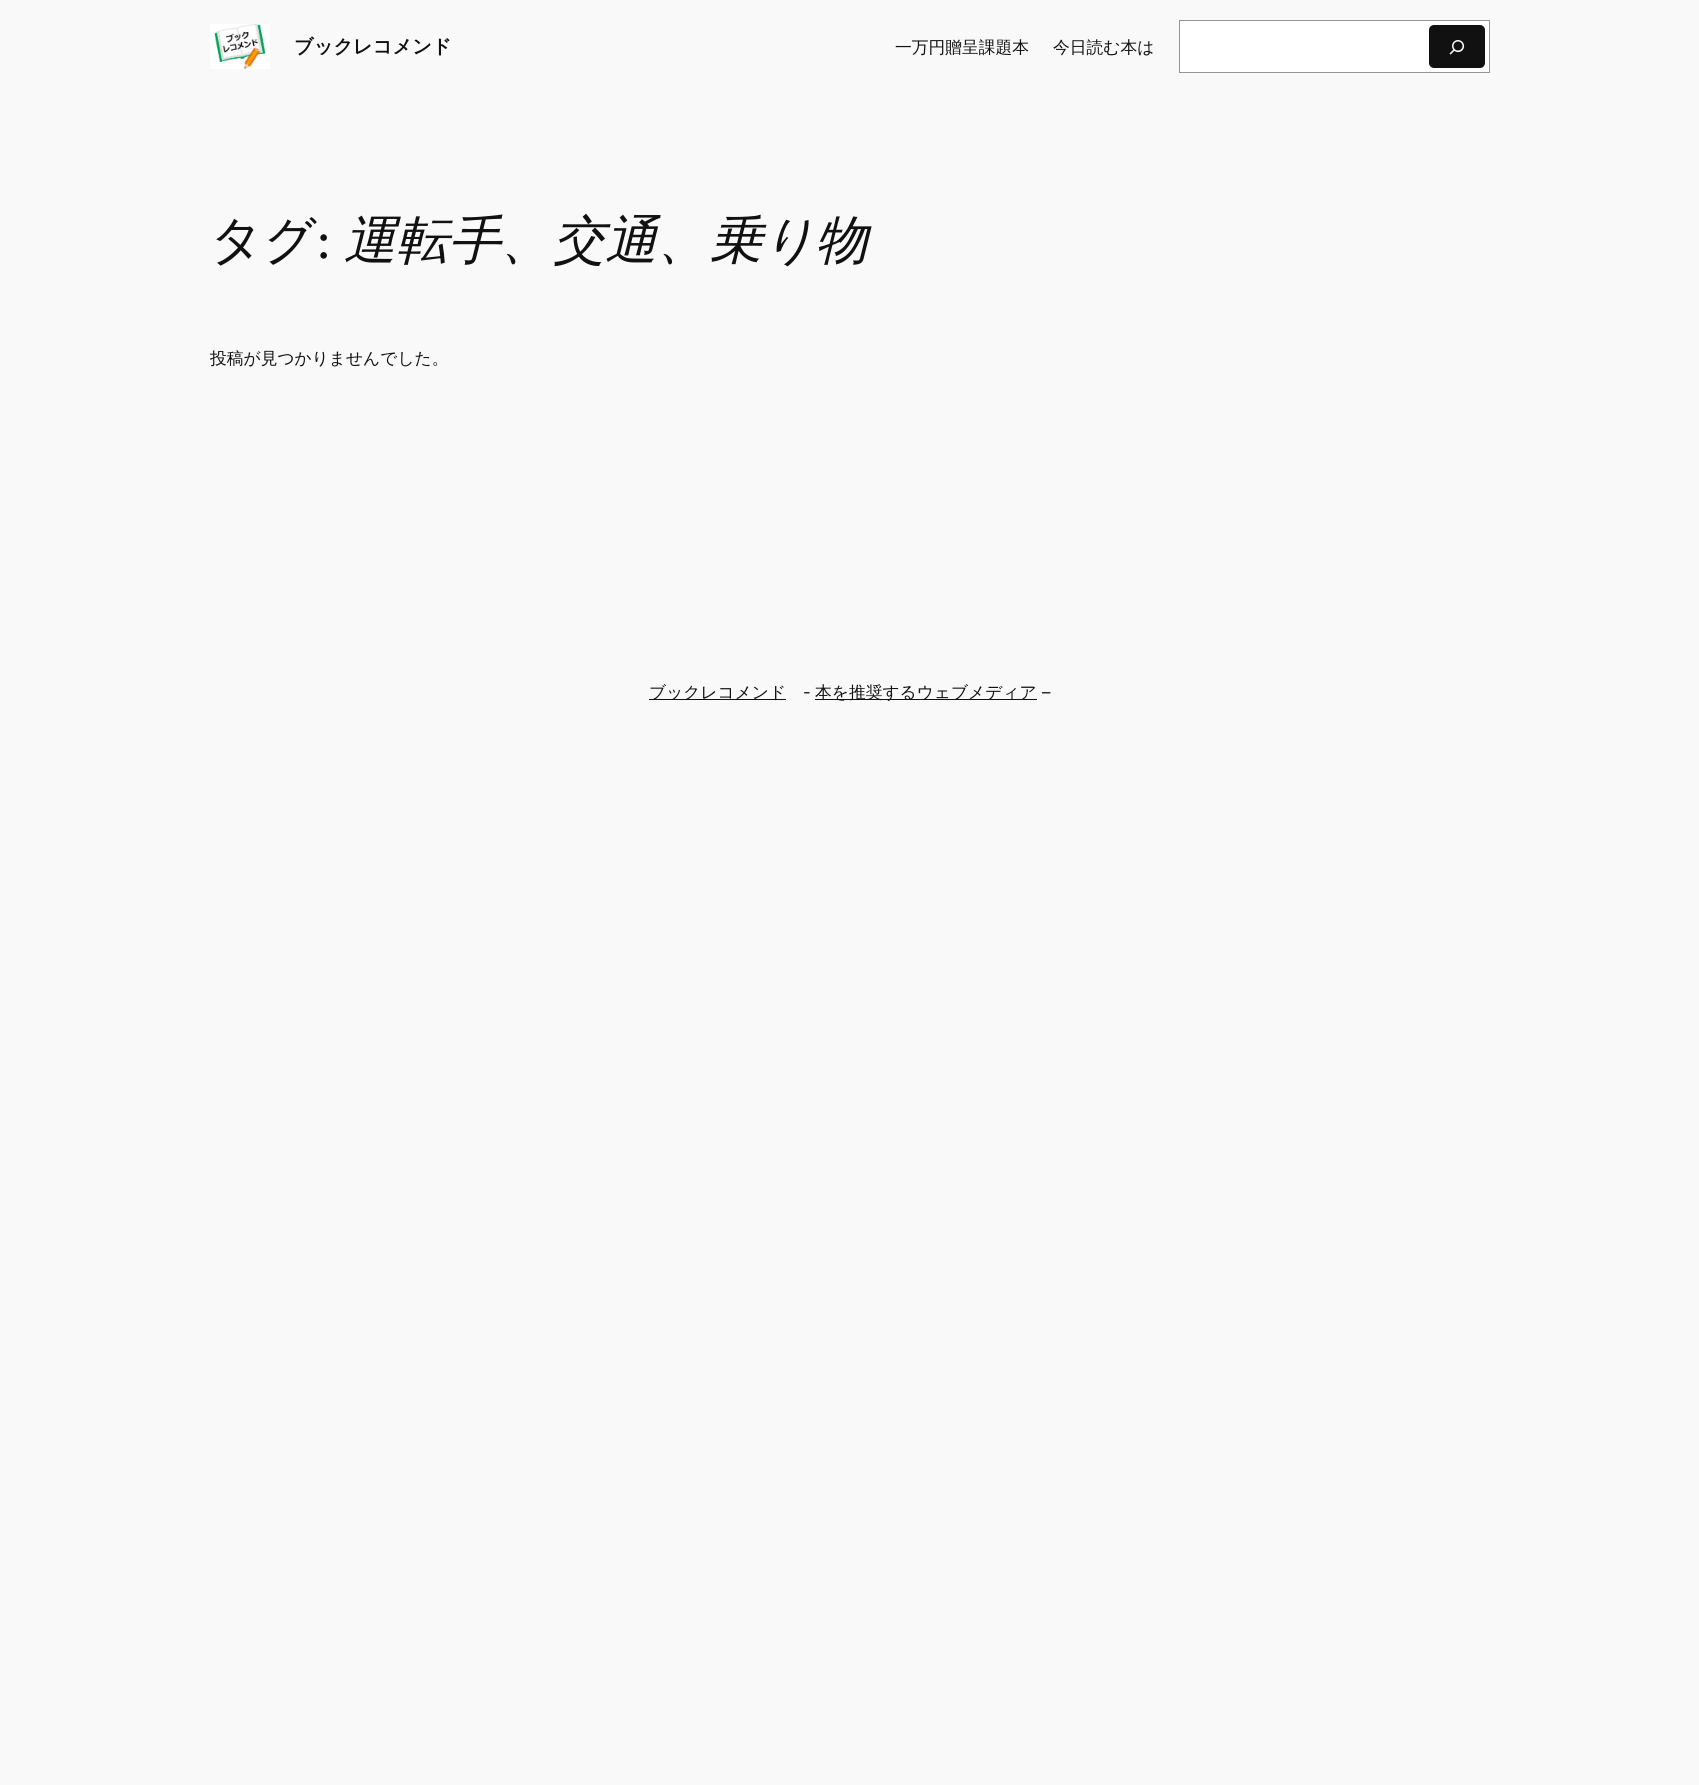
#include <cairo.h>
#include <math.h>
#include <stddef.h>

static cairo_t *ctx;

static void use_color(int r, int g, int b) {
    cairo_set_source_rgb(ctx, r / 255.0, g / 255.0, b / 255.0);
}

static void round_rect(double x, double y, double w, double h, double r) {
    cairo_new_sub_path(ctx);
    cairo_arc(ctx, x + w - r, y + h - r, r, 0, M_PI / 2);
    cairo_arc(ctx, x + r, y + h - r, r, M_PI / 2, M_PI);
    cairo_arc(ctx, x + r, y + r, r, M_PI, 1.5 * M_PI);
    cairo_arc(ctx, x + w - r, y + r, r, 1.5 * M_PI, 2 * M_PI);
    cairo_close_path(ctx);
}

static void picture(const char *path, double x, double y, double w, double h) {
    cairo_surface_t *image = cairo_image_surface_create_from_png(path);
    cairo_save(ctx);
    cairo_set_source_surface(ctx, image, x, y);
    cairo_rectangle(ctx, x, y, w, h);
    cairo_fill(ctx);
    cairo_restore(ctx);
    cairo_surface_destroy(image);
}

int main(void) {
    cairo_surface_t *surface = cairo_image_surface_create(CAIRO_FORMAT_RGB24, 1699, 1785);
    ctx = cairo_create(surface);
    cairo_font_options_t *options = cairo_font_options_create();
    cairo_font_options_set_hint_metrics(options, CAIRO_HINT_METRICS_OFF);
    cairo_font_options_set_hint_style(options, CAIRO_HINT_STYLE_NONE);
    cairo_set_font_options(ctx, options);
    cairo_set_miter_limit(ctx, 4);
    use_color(249, 249, 249);
    cairo_paint(ctx);
    picture("img1.png", 210, 24, 60, 45);
    cairo_select_font_face(ctx, "WenQuanYi Zen Hei", CAIRO_FONT_SLANT_NORMAL, CAIRO_FONT_WEIGHT_BOLD);
    cairo_set_font_size(ctx, 19.25);
    use_color(17, 17, 17);
    cairo_move_to(ctx, 294, 53);
    cairo_show_text(ctx, "ブックレコメンド");
    cairo_select_font_face(ctx, "WenQuanYi Zen Hei Medium", CAIRO_FONT_SLANT_NORMAL, CAIRO_FONT_WEIGHT_NORMAL);
    cairo_set_font_size(ctx, 16.75);
    cairo_move_to(ctx, 895, 53);
    cairo_show_text(ctx, "一万円贈呈課題本");
    cairo_move_to(ctx, 1053, 53);
    cairo_show_text(ctx, "今日読む本は");
    use_color(255, 255, 255);
    cairo_rectangle(ctx, 1179.5, 20.5, 310, 52);
    cairo_fill_preserve(ctx);
    use_color(148, 148, 148);
    cairo_set_line_width(ctx, 1);
    cairo_stroke(ctx);
    use_color(17, 17, 17);
    round_rect(1429, 25, 56, 43, 5);
    cairo_fill(ctx);
    picture("img2.png", 1449, 40, 16, 15);
    cairo_set_font_size(ctx, 52.25);
    cairo_move_to(ctx, 210, 258);
    cairo_show_text(ctx, "タグ");
    picture("img3.png", 320, 234, 7, 25);
    cairo_select_font_face(ctx, "WenQuanYi Zen Hei Medium", CAIRO_FONT_SLANT_ITALIC, CAIRO_FONT_WEIGHT_NORMAL);
    cairo_move_to(ctx, 344, 258);
    cairo_show_text(ctx, "運転手、交通、乗り物");
    cairo_select_font_face(ctx, "WenQuanYi Zen Hei Medium", CAIRO_FONT_SLANT_NORMAL, CAIRO_FONT_WEIGHT_NORMAL);
    cairo_set_font_size(ctx, 16.75);
    cairo_move_to(ctx, 210, 364);
    cairo_show_text(ctx, "投稿が見つかりませんでした。");
    cairo_rectangle(ctx, 649, 699, 137, 1);
    cairo_fill(ctx);
    cairo_move_to(ctx, 649, 698);
    cairo_show_text(ctx, "ブックレコメンド");
    cairo_select_font_face(ctx, "Inter", CAIRO_FONT_SLANT_NORMAL, CAIRO_FONT_WEIGHT_NORMAL);
    cairo_move_to(ctx, 803, 698);
    cairo_show_text(ctx, "-");
    cairo_rectangle(ctx, 815, 699, 222, 1);
    cairo_fill(ctx);
    cairo_select_font_face(ctx, "WenQuanYi Zen Hei Medium", CAIRO_FONT_SLANT_NORMAL, CAIRO_FONT_WEIGHT_NORMAL);
    cairo_move_to(ctx, 815, 698);
    cairo_show_text(ctx, "本を推奨するウェブメディア");
    cairo_select_font_face(ctx, "Inter", CAIRO_FONT_SLANT_NORMAL, CAIRO_FONT_WEIGHT_NORMAL);
    cairo_move_to(ctx, 1042, 698);
    cairo_show_text(ctx, "–");
    cairo_surface_write_to_png(surface, "result.png");
    cairo_font_options_destroy(options);
    cairo_destroy(ctx);
    cairo_surface_destroy(surface);
    return 0;
}
